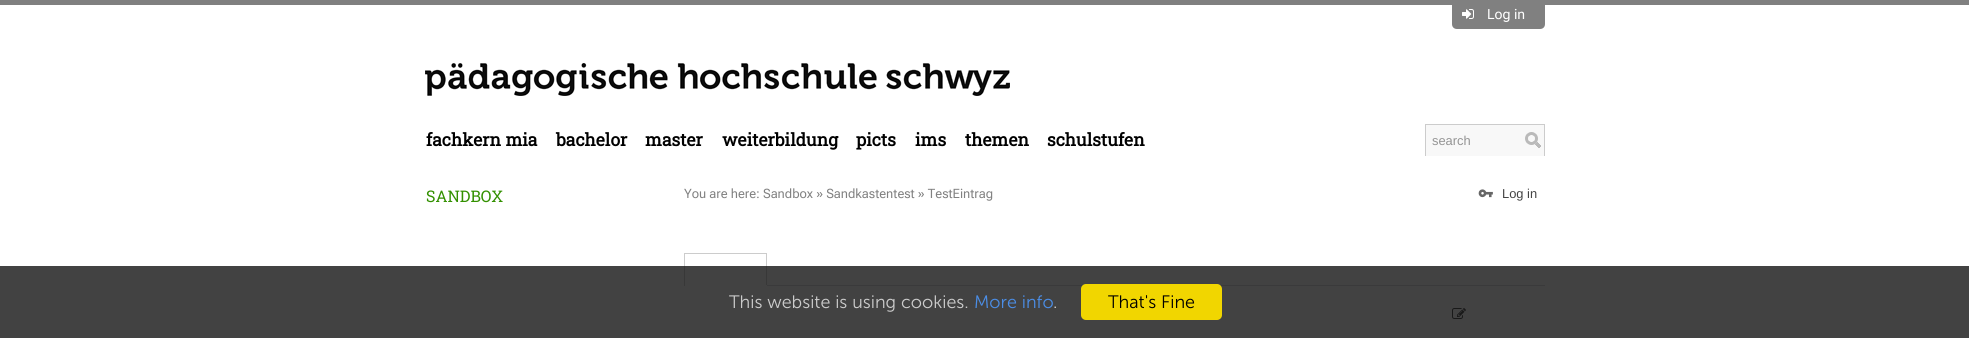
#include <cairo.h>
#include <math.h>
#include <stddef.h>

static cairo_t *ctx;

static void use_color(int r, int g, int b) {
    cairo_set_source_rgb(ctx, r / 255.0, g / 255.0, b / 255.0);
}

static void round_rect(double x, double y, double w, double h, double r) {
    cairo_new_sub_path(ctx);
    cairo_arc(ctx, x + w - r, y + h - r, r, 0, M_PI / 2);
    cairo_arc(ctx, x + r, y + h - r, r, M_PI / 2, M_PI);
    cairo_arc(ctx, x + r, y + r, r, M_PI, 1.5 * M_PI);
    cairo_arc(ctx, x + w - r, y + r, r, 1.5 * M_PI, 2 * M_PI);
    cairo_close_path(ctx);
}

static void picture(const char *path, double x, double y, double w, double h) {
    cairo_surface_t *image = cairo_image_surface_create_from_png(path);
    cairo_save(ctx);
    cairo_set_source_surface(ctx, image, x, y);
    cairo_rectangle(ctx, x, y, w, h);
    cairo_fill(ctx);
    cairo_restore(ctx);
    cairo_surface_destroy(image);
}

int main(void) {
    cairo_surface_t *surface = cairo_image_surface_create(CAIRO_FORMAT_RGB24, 1969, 338);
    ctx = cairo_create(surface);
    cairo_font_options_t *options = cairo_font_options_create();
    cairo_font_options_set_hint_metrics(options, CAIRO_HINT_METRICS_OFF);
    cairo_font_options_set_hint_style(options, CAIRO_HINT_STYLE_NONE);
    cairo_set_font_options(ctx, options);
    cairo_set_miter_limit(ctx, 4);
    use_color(255, 255, 255);
    cairo_paint(ctx);
    use_color(128, 128, 128);
    cairo_rectangle(ctx, 0, 0, 1969, 5);
    cairo_fill(ctx);
    cairo_new_path(ctx);
    cairo_move_to(ctx, 1452, 0);
    cairo_line_to(ctx, 1545, 0);
    cairo_line_to(ctx, 1545, 24);
    cairo_curve_to(ctx, 1545, 27, 1543, 29, 1540, 29);
    cairo_line_to(ctx, 1457, 29);
    cairo_curve_to(ctx, 1454, 29, 1452, 27, 1452, 24);
    cairo_close_path(ctx);
    cairo_fill(ctx);
    picture("img1.png", 1462, 9, 12, 10);
    cairo_select_font_face(ctx, "Roboto Flex", CAIRO_FONT_SLANT_ITALIC, CAIRO_FONT_WEIGHT_NORMAL);
    cairo_set_font_size(ctx, 14);
    use_color(255, 255, 255);
    cairo_move_to(ctx, 1487, 19);
    cairo_show_text(ctx, "Log in");
    picture("img2.png", 425, 63, 585, 33);
    cairo_select_font_face(ctx, "Roboto Slab", CAIRO_FONT_SLANT_NORMAL, CAIRO_FONT_WEIGHT_BOLD);
    cairo_set_font_size(ctx, 17.5);
    use_color(0, 0, 0);
    cairo_move_to(ctx, 426, 146);
    cairo_show_text(ctx, "fachkern mia");
    cairo_move_to(ctx, 556, 146);
    cairo_show_text(ctx, "bachelor");
    cairo_move_to(ctx, 645, 146);
    cairo_show_text(ctx, "master");
    cairo_move_to(ctx, 722, 146);
    cairo_show_text(ctx, "weiterbildung");
    cairo_move_to(ctx, 856, 146);
    cairo_show_text(ctx, "picts");
    cairo_move_to(ctx, 915, 146);
    cairo_show_text(ctx, "ims");
    cairo_move_to(ctx, 965, 146);
    cairo_show_text(ctx, "themen");
    cairo_move_to(ctx, 1047, 146);
    cairo_show_text(ctx, "schulstufen");
    use_color(248, 248, 248);
    cairo_rectangle(ctx, 1426, 125, 118, 31);
    cairo_fill(ctx);
    use_color(204, 204, 204);
    cairo_rectangle(ctx, 1425, 124, 120, 1);
    cairo_fill(ctx);
    cairo_rectangle(ctx, 1544, 124, 1, 32);
    cairo_fill(ctx);
    cairo_rectangle(ctx, 1425, 124, 1, 32);
    cairo_fill(ctx);
    cairo_select_font_face(ctx, "Liberation Sans", CAIRO_FONT_SLANT_NORMAL, CAIRO_FONT_WEIGHT_NORMAL);
    cairo_set_font_size(ctx, 12.9);
    use_color(148, 148, 148);
    cairo_move_to(ctx, 1432, 145);
    cairo_show_text(ctx, "search");
    picture("img3.png", 1525, 132, 16, 16);
    cairo_select_font_face(ctx, "Roboto Slab", CAIRO_FONT_SLANT_NORMAL, CAIRO_FONT_WEIGHT_NORMAL);
    cairo_set_font_size(ctx, 16);
    use_color(51, 144, 0);
    cairo_move_to(ctx, 426, 202);
    cairo_show_text(ctx, "SANDBOX");
    cairo_select_font_face(ctx, "Roboto Flex", CAIRO_FONT_SLANT_ITALIC, CAIRO_FONT_WEIGHT_NORMAL);
    cairo_set_font_size(ctx, 12.9);
    use_color(129, 129, 129);
    cairo_move_to(ctx, 684, 198);
    cairo_show_text(ctx, "You are here: Sandbox » Sandkastentest » TestEintrag");
    picture("img4.png", 1478, 189, 15, 9);
    cairo_select_font_face(ctx, "Liberation Sans", CAIRO_FONT_SLANT_NORMAL, CAIRO_FONT_WEIGHT_NORMAL);
    use_color(68, 68, 68);
    cairo_move_to(ctx, 1502, 198);
    cairo_show_text(ctx, "Log in");
    use_color(204, 204, 204);
    cairo_rectangle(ctx, 684, 253, 83, 1);
    cairo_fill(ctx);
    cairo_rectangle(ctx, 766, 253, 1, 33);
    cairo_fill(ctx);
    use_color(255, 255, 255);
    cairo_rectangle(ctx, 766, 285, 1, 1);
    cairo_fill(ctx);
    use_color(204, 204, 204);
    cairo_rectangle(ctx, 684, 253, 1, 33);
    cairo_fill(ctx);
    use_color(213, 214, 221);
    cairo_rectangle(ctx, 767, 285, 778, 1);
    cairo_fill(ctx);
    picture("img5.png", 1452, 308, 14, 11);
    cairo_set_source_rgba(ctx, 0.078, 0.078, 0.078, 0.8);
    cairo_rectangle(ctx, 0, 266, 1969, 72);
    cairo_fill(ctx);
    cairo_select_font_face(ctx, "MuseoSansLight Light", CAIRO_FONT_SLANT_NORMAL, CAIRO_FONT_WEIGHT_NORMAL);
    cairo_set_font_size(ctx, 18);
    use_color(204, 204, 204);
    cairo_move_to(ctx, 729, 308);
    cairo_show_text(ctx, "This website is using cookies.");
    use_color(75, 142, 231);
    cairo_move_to(ctx, 974, 308);
    cairo_show_text(ctx, "More info");
    use_color(204, 204, 204);
    cairo_move_to(ctx, 1053, 308);
    cairo_show_text(ctx, ".");
    use_color(241, 214, 0);
    round_rect(1081, 284, 141, 36, 5);
    cairo_fill(ctx);
    use_color(0, 0, 0);
    cairo_move_to(ctx, 1108, 308);
    cairo_show_text(ctx, "That's Fine");
    cairo_surface_write_to_png(surface, "result.png");
    cairo_font_options_destroy(options);
    cairo_destroy(ctx);
    cairo_surface_destroy(surface);
    return 0;
}
